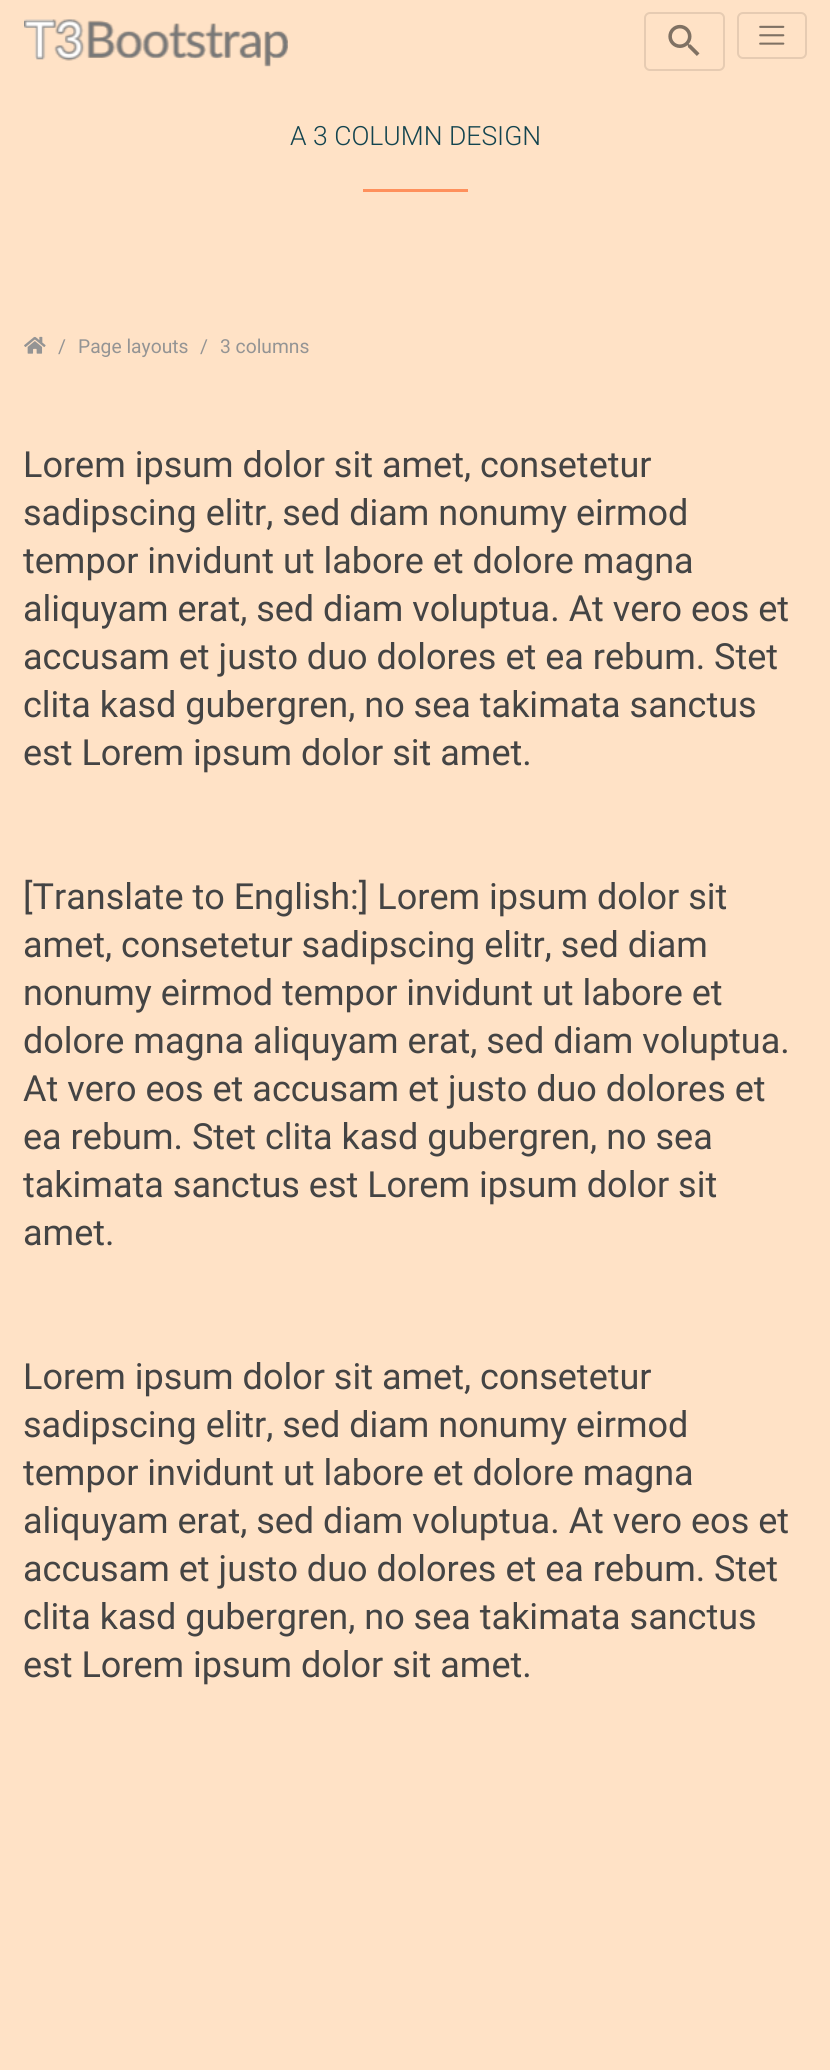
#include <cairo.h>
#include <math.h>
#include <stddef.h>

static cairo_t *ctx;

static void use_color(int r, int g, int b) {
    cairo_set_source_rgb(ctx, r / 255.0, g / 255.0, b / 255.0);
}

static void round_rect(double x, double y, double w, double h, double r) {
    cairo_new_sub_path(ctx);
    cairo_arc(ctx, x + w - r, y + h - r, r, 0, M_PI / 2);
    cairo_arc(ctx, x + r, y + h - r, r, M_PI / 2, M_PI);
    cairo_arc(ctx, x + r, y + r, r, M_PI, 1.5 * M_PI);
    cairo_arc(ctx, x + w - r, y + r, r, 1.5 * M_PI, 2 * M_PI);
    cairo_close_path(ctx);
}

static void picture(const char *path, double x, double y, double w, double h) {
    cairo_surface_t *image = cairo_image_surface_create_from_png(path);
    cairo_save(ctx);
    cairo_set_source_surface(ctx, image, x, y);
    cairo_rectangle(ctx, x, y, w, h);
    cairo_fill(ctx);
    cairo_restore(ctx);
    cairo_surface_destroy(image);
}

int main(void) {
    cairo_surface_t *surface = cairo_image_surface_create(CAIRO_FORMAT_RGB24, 830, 2070);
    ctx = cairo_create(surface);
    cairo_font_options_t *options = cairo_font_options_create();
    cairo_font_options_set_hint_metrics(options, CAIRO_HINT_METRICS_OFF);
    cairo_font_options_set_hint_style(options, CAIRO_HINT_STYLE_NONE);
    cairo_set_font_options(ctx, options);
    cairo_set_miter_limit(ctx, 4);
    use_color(255, 226, 198);
    cairo_paint(ctx);
    picture("img1.png", 24, 19, 264, 48);
    round_rect(645, 13, 79, 57, 5);
    use_color(230, 203, 178);
    cairo_stroke(ctx);
    picture("img2.png", 668, 24, 32, 32);
    round_rect(738, 13, 68, 45, 5);
    cairo_stroke(ctx);
    picture("img3.png", 759, 25, 26, 20);
    cairo_select_font_face(ctx, "Roboto Light", CAIRO_FONT_SLANT_NORMAL, CAIRO_FONT_WEIGHT_NORMAL);
    cairo_set_font_size(ctx, 26.5);
    use_color(19, 68, 79);
    cairo_move_to(ctx, 290, 145);
    cairo_show_text(ctx, "A 3 COLUMN DESIGN");
    use_color(255, 144, 92);
    cairo_rectangle(ctx, 363, 189, 105, 3);
    cairo_fill(ctx);
    picture("img4.png", 24, 336, 22, 18);
    cairo_select_font_face(ctx, "Roboto", CAIRO_FONT_SLANT_NORMAL, CAIRO_FONT_WEIGHT_NORMAL);
    cairo_set_font_size(ctx, 19.25);
    use_color(148, 148, 148);
    cairo_move_to(ctx, 58, 353);
    cairo_show_text(ctx, "/");
    cairo_move_to(ctx, 78, 353);
    cairo_show_text(ctx, "Page layouts");
    cairo_move_to(ctx, 200, 353);
    cairo_show_text(ctx, "/");
    cairo_move_to(ctx, 220, 353);
    cairo_show_text(ctx, "3 columns");
    cairo_set_font_size(ctx, 36);
    use_color(68, 68, 68);
    cairo_move_to(ctx, 23, 477);
    cairo_show_text(ctx, "Lorem ipsum dolor sit amet, consetetur");
    cairo_move_to(ctx, 23, 525);
    cairo_show_text(ctx, "sadipscing elitr, sed diam nonumy eirmod");
    cairo_save(ctx);
    cairo_rectangle(ctx, 23, 441, 786, 360);
    cairo_clip(ctx);
    cairo_move_to(ctx, 23, 573);
    cairo_show_text(ctx, "tempor invidunt ut labore et dolore magna");
    cairo_restore(ctx);
    cairo_move_to(ctx, 23, 621);
    cairo_show_text(ctx, "aliquyam erat, sed diam voluptua. At vero eos et");
    cairo_move_to(ctx, 23, 669);
    cairo_show_text(ctx, "accusam et justo duo dolores et ea rebum. Stet");
    cairo_move_to(ctx, 23, 717);
    cairo_show_text(ctx, "clita kasd gubergren, no sea takimata sanctus");
    cairo_move_to(ctx, 23, 765);
    cairo_show_text(ctx, "est Lorem ipsum dolor sit amet.");
    cairo_move_to(ctx, 23, 909);
    cairo_show_text(ctx, "[Translate to English:] Lorem ipsum dolor sit");
    cairo_move_to(ctx, 23, 957);
    cairo_show_text(ctx, "amet, consetetur sadipscing elitr, sed diam");
    cairo_move_to(ctx, 23, 1005);
    cairo_show_text(ctx, "nonumy eirmod tempor invidunt ut labore et");
    cairo_move_to(ctx, 23, 1053);
    cairo_show_text(ctx, "dolore magna aliquyam erat, sed diam voluptua.");
    cairo_move_to(ctx, 23, 1101);
    cairo_show_text(ctx, "At vero eos et accusam et justo duo dolores et");
    cairo_move_to(ctx, 23, 1149);
    cairo_show_text(ctx, "ea rebum. Stet clita kasd gubergren, no sea");
    cairo_save(ctx);
    cairo_rectangle(ctx, 23, 873, 786, 408);
    cairo_clip(ctx);
    cairo_move_to(ctx, 23, 1197);
    cairo_show_text(ctx, "takimata sanctus est Lorem ipsum dolor sit");
    cairo_restore(ctx);
    cairo_move_to(ctx, 23, 1245);
    cairo_show_text(ctx, "amet.");
    cairo_move_to(ctx, 23, 1389);
    cairo_show_text(ctx, "Lorem ipsum dolor sit amet, consetetur");
    cairo_move_to(ctx, 23, 1437);
    cairo_show_text(ctx, "sadipscing elitr, sed diam nonumy eirmod");
    cairo_save(ctx);
    cairo_rectangle(ctx, 23, 1353, 786, 360);
    cairo_clip(ctx);
    cairo_move_to(ctx, 23, 1485);
    cairo_show_text(ctx, "tempor invidunt ut labore et dolore magna");
    cairo_restore(ctx);
    cairo_move_to(ctx, 23, 1533);
    cairo_show_text(ctx, "aliquyam erat, sed diam voluptua. At vero eos et");
    cairo_move_to(ctx, 23, 1581);
    cairo_show_text(ctx, "accusam et justo duo dolores et ea rebum. Stet");
    cairo_move_to(ctx, 23, 1629);
    cairo_show_text(ctx, "clita kasd gubergren, no sea takimata sanctus");
    cairo_move_to(ctx, 23, 1677);
    cairo_show_text(ctx, "est Lorem ipsum dolor sit amet.");
    cairo_surface_write_to_png(surface, "result.png");
    cairo_font_options_destroy(options);
    cairo_destroy(ctx);
    cairo_surface_destroy(surface);
    return 0;
}
